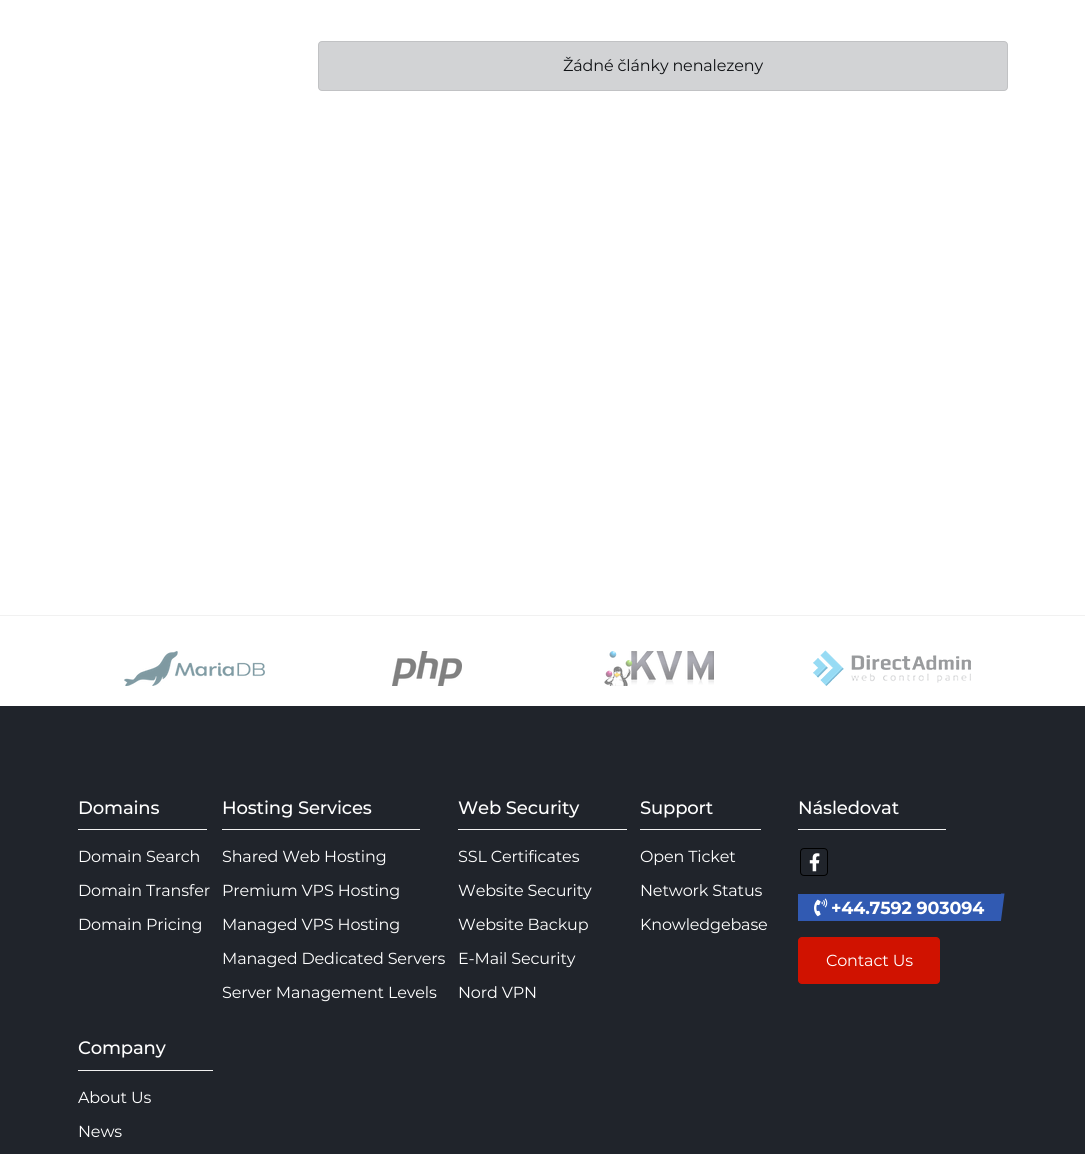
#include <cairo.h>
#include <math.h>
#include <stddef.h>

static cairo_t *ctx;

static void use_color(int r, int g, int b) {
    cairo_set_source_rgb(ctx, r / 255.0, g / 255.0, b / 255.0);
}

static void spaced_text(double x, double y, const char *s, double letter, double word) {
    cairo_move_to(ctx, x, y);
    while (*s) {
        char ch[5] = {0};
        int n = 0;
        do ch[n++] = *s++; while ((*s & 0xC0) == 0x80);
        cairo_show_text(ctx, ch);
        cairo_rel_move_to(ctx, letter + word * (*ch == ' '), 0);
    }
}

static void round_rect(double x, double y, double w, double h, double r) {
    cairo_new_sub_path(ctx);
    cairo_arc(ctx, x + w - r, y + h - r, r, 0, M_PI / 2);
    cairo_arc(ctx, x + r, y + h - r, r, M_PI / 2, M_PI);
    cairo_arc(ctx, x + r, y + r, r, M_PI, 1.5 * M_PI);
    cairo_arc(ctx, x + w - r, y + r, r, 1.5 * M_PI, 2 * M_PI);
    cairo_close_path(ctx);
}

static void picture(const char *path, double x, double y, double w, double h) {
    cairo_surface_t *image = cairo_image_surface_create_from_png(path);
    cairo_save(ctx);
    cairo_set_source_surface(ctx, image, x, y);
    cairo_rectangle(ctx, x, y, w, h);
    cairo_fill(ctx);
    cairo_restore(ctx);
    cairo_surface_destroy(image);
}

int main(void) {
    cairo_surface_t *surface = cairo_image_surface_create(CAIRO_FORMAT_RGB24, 1085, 1154);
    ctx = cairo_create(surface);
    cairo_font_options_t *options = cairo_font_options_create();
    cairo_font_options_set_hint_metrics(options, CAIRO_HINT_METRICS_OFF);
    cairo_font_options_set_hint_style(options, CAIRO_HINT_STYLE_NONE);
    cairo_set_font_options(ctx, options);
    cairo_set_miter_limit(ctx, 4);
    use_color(255, 255, 255);
    cairo_paint(ctx);
    use_color(210, 211, 213);
    round_rect(318.5, 41.5, 689, 49, 3.5);
    cairo_fill_preserve(ctx);
    use_color(193, 194, 196);
    cairo_set_line_width(ctx, 1);
    cairo_stroke(ctx);
    cairo_select_font_face(ctx, "Montserrat", CAIRO_FONT_SLANT_NORMAL, CAIRO_FONT_WEIGHT_NORMAL);
    cairo_set_font_size(ctx, 16);
    use_color(17, 19, 22);
    spaced_text(563, 71, "Žádné články nenalezeny", -0.15, 0);
    use_color(241, 241, 241);
    cairo_rectangle(ctx, 0, 615, 1085, 1);
    cairo_fill(ctx);
    picture("img1.png", 124, 651, 141, 35);
    picture("img2.png", 392, 651, 70, 35);
    picture("img3.png", 604, 651, 110, 35);
    picture("img4.png", 813, 650, 158, 36);
    use_color(32, 36, 43);
    cairo_rectangle(ctx, 0, 706, 1085, 448);
    cairo_fill(ctx);
    use_color(241, 241, 241);
    cairo_rectangle(ctx, 78, 829, 129, 1);
    cairo_fill(ctx);
    cairo_select_font_face(ctx, "Montserrat Medium", CAIRO_FONT_SLANT_NORMAL, CAIRO_FONT_WEIGHT_NORMAL);
    cairo_set_font_size(ctx, 18);
    use_color(255, 255, 255);
    spaced_text(78, 814, "Domains", -0.15, 0);
    cairo_select_font_face(ctx, "Montserrat", CAIRO_FONT_SLANT_NORMAL, CAIRO_FONT_WEIGHT_NORMAL);
    cairo_set_font_size(ctx, 16);
    spaced_text(78, 862, "Domain Search", -0.15, 0);
    spaced_text(78, 896, "Domain Transfer", -0.15, 0);
    spaced_text(78, 930, "Domain Pricing", -0.15, 0);
    use_color(241, 241, 241);
    cairo_rectangle(ctx, 222, 829, 198, 1);
    cairo_fill(ctx);
    cairo_select_font_face(ctx, "Montserrat Medium", CAIRO_FONT_SLANT_NORMAL, CAIRO_FONT_WEIGHT_NORMAL);
    cairo_set_font_size(ctx, 18);
    use_color(255, 255, 255);
    spaced_text(222, 814, "Hosting Services", -0.15, 0);
    cairo_select_font_face(ctx, "Montserrat", CAIRO_FONT_SLANT_NORMAL, CAIRO_FONT_WEIGHT_NORMAL);
    cairo_set_font_size(ctx, 16);
    spaced_text(222, 862, "Shared Web Hosting", -0.15, 0);
    spaced_text(222, 896, "Premium VPS Hosting", -0.15, 0);
    spaced_text(222, 930, "Managed VPS Hosting", -0.15, 0);
    spaced_text(222, 964, "Managed Dedicated Servers", -0.15, 0);
    spaced_text(222, 998, "Server Management Levels", -0.15, 0);
    use_color(241, 241, 241);
    cairo_rectangle(ctx, 458, 829, 169, 1);
    cairo_fill(ctx);
    cairo_select_font_face(ctx, "Montserrat Medium", CAIRO_FONT_SLANT_NORMAL, CAIRO_FONT_WEIGHT_NORMAL);
    cairo_set_font_size(ctx, 18);
    use_color(255, 255, 255);
    spaced_text(458, 814, "Web Security", -0.15, 0);
    cairo_select_font_face(ctx, "Montserrat", CAIRO_FONT_SLANT_NORMAL, CAIRO_FONT_WEIGHT_NORMAL);
    cairo_set_font_size(ctx, 16);
    spaced_text(458, 862, "SSL Certificates", -0.15, 0);
    spaced_text(458, 896, "Website Security", -0.15, 0);
    spaced_text(458, 930, "Website Backup", -0.15, 0);
    spaced_text(458, 964, "E-Mail Security", -0.15, 0);
    spaced_text(458, 998, "Nord VPN", -0.15, 0);
    use_color(241, 241, 241);
    cairo_rectangle(ctx, 640, 829, 121, 1);
    cairo_fill(ctx);
    cairo_select_font_face(ctx, "Montserrat Medium", CAIRO_FONT_SLANT_NORMAL, CAIRO_FONT_WEIGHT_NORMAL);
    cairo_set_font_size(ctx, 18);
    use_color(255, 255, 255);
    spaced_text(640, 814, "Support", -0.15, 0);
    cairo_select_font_face(ctx, "Montserrat", CAIRO_FONT_SLANT_NORMAL, CAIRO_FONT_WEIGHT_NORMAL);
    cairo_set_font_size(ctx, 16);
    spaced_text(640, 862, "Open Ticket", -0.15, 0);
    spaced_text(640, 896, "Network Status", -0.15, 0);
    spaced_text(640, 930, "Knowledgebase", -0.15, 0);
    use_color(241, 241, 241);
    cairo_rectangle(ctx, 78, 1070, 135, 1);
    cairo_fill(ctx);
    cairo_select_font_face(ctx, "Montserrat Medium", CAIRO_FONT_SLANT_NORMAL, CAIRO_FONT_WEIGHT_NORMAL);
    cairo_set_font_size(ctx, 18);
    use_color(255, 255, 255);
    spaced_text(78, 1054, "Company", -0.15, 0);
    cairo_select_font_face(ctx, "Montserrat", CAIRO_FONT_SLANT_NORMAL, CAIRO_FONT_WEIGHT_NORMAL);
    cairo_set_font_size(ctx, 16);
    spaced_text(78, 1103, "About Us", -0.15, 0);
    spaced_text(78, 1137, "News", -0.15, 0);
    use_color(241, 241, 241);
    cairo_rectangle(ctx, 798, 829, 148, 1);
    cairo_fill(ctx);
    cairo_select_font_face(ctx, "Montserrat Medium", CAIRO_FONT_SLANT_NORMAL, CAIRO_FONT_WEIGHT_NORMAL);
    cairo_set_font_size(ctx, 18);
    use_color(255, 255, 255);
    spaced_text(798, 814, "Následovat", -0.15, 0);
    round_rect(800.5, 848.5, 27, 27, 3.5);
    use_color(0, 0, 0);
    cairo_stroke(ctx);
    picture("img5.png", 809, 853, 11, 19);
    use_color(49, 90, 178);
    cairo_rectangle(ctx, 798, 894, 203, 27);
    cairo_fill(ctx);
    picture("img6.png", 814, 898, 14, 19);
    cairo_select_font_face(ctx, "Montserrat", CAIRO_FONT_SLANT_NORMAL, CAIRO_FONT_WEIGHT_BOLD);
    cairo_set_font_size(ctx, 17.5);
    use_color(255, 255, 255);
    spaced_text(831, 914, "+44.7592 903094", -0.15, 0);
    use_color(49, 90, 178);
    cairo_new_path(ctx);
    cairo_move_to(ctx, 1001, 893.5);
    cairo_line_to(ctx, 1004.5, 893.5);
    cairo_line_to(ctx, 1001, 920.5);
    cairo_line_to(ctx, 997.5, 920.5);
    cairo_close_path(ctx);
    cairo_fill(ctx);
    use_color(208, 18, 0);
    round_rect(798.5, 937.5, 141, 46, 3.5);
    cairo_fill_preserve(ctx);
    cairo_stroke(ctx);
    cairo_select_font_face(ctx, "Montserrat", CAIRO_FONT_SLANT_NORMAL, CAIRO_FONT_WEIGHT_NORMAL);
    cairo_set_font_size(ctx, 16);
    use_color(255, 255, 255);
    spaced_text(826, 966, "Contact Us", -0.15, 0);
    cairo_surface_write_to_png(surface, "result.png");
    cairo_font_options_destroy(options);
    cairo_destroy(ctx);
    cairo_surface_destroy(surface);
    return 0;
}
